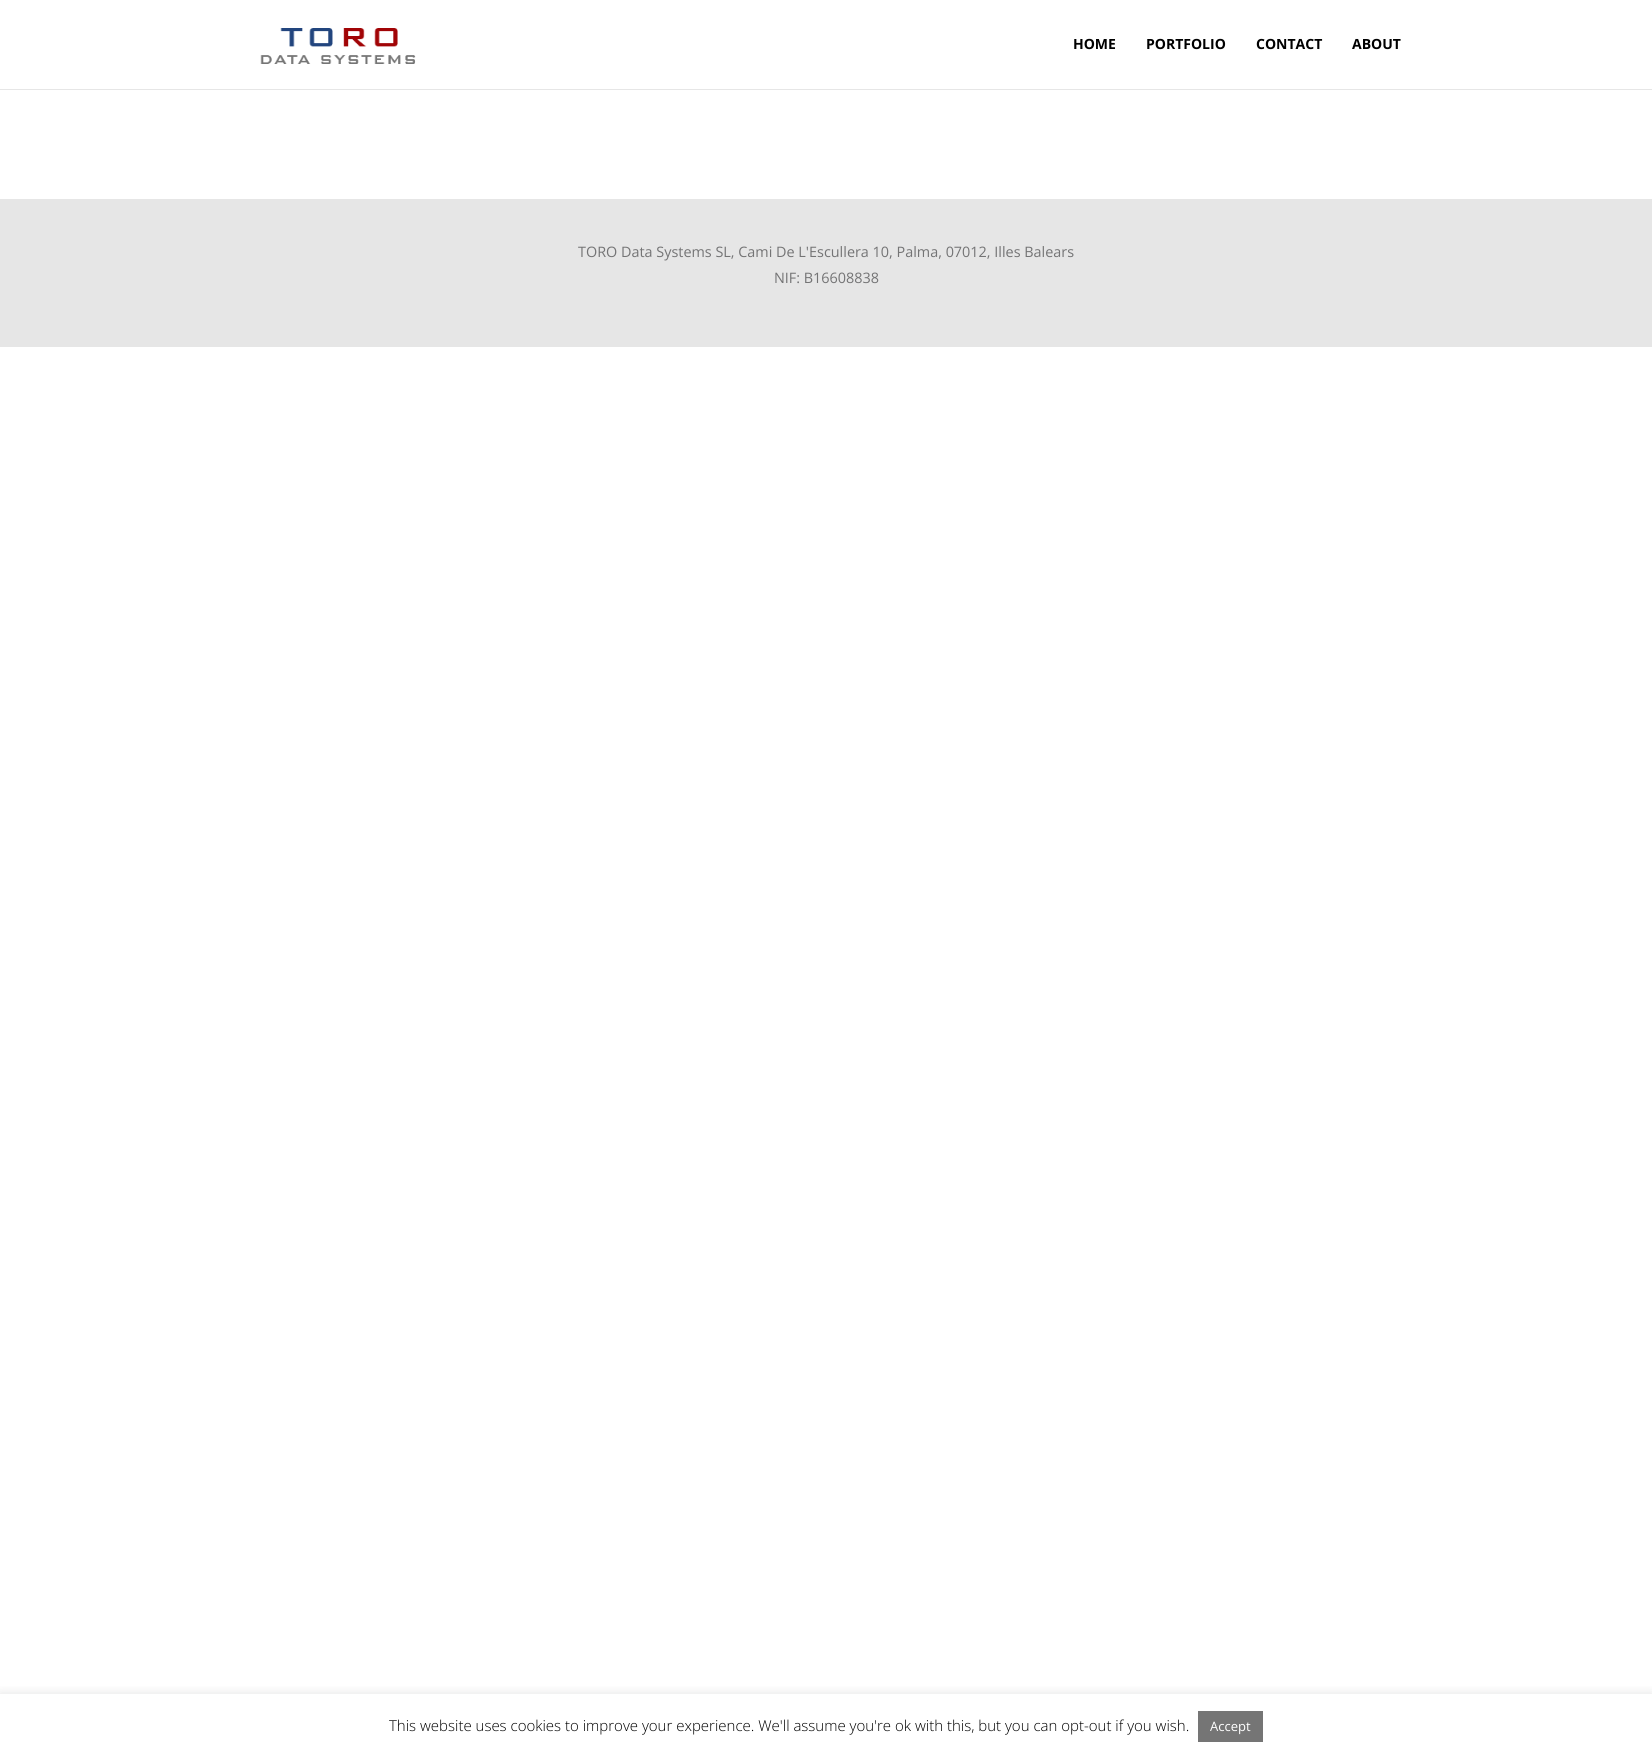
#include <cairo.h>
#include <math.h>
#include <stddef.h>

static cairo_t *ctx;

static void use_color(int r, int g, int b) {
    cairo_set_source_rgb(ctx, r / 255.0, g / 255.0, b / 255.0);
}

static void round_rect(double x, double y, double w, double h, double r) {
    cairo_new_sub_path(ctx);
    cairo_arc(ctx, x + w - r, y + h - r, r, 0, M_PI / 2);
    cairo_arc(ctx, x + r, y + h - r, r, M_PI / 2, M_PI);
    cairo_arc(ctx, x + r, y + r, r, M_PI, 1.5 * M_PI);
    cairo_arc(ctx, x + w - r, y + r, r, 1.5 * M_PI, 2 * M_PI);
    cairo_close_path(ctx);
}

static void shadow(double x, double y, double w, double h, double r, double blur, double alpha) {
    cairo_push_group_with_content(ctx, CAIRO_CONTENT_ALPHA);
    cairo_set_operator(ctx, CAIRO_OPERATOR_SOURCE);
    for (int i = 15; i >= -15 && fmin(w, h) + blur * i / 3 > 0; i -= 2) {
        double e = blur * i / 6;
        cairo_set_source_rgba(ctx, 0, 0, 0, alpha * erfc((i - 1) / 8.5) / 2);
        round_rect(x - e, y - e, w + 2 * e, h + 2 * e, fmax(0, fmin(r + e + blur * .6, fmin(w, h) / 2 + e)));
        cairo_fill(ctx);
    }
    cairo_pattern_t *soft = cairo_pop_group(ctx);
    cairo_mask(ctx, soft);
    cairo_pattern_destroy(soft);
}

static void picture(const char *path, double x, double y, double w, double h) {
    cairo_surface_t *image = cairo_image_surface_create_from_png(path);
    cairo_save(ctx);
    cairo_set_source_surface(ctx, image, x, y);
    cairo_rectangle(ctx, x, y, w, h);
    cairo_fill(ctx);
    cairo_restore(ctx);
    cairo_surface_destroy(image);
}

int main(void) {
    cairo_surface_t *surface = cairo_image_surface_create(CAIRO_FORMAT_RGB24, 1652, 1754);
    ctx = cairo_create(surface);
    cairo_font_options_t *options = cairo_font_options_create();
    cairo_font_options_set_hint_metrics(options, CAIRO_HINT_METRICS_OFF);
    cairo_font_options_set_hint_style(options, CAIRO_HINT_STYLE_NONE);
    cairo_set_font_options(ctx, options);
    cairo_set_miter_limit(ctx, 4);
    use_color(255, 255, 255);
    cairo_paint(ctx);
    use_color(230, 230, 230);
    cairo_rectangle(ctx, 0, 89, 1652, 1);
    cairo_fill(ctx);
    picture("img1.png", 260, 28, 156, 36);
    cairo_select_font_face(ctx, "Open Sans", CAIRO_FONT_SLANT_NORMAL, CAIRO_FONT_WEIGHT_BOLD);
    cairo_set_font_size(ctx, 14);
    use_color(0, 0, 0);
    cairo_move_to(ctx, 1073, 49);
    cairo_show_text(ctx, "HOME");
    cairo_move_to(ctx, 1146, 49);
    cairo_show_text(ctx, "PORTFOLIO");
    cairo_move_to(ctx, 1256, 49);
    cairo_show_text(ctx, "CONTACT");
    cairo_move_to(ctx, 1352, 49);
    cairo_show_text(ctx, "ABOUT");
    use_color(230, 230, 230);
    cairo_rectangle(ctx, 0, 199, 1652, 148);
    cairo_fill(ctx);
    cairo_select_font_face(ctx, "Open Sans", CAIRO_FONT_SLANT_NORMAL, CAIRO_FONT_WEIGHT_NORMAL);
    cairo_set_font_size(ctx, 14.4);
    use_color(116, 116, 117);
    cairo_move_to(ctx, 578, 257);
    cairo_show_text(ctx, "TORO Data Systems SL, Cami De L'Escullera 10, Palma, 07012, Illes Balears");
    cairo_move_to(ctx, 774, 283);
    cairo_show_text(ctx, "NIF: B16608838");
    cairo_save(ctx);
    cairo_rectangle(ctx, 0, 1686, 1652, 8);
    cairo_clip(ctx);
    use_color(172, 171, 171);
    shadow(0, 1693, 1652, 60, 0, 5, 0.3);
    cairo_restore(ctx);
    cairo_select_font_face(ctx, "Open Sans Light", CAIRO_FONT_SLANT_NORMAL, CAIRO_FONT_WEIGHT_NORMAL);
    cairo_set_font_size(ctx, 15);
    use_color(0, 0, 0);
    cairo_move_to(ctx, 389, 1731);
    cairo_show_text(ctx, "This website uses cookies to improve your experience. We'll assume you're ok with this, but you can opt-out if you wish.");
    use_color(117, 117, 117);
    cairo_rectangle(ctx, 1198, 1711, 65, 31);
    cairo_fill(ctx);
    cairo_select_font_face(ctx, "Open Sans", CAIRO_FONT_SLANT_NORMAL, CAIRO_FONT_WEIGHT_NORMAL);
    cairo_set_font_size(ctx, 13);
    use_color(255, 255, 255);
    cairo_move_to(ctx, 1210, 1731);
    cairo_show_text(ctx, "Accept");
    cairo_surface_write_to_png(surface, "result.png");
    cairo_font_options_destroy(options);
    cairo_destroy(ctx);
    cairo_surface_destroy(surface);
    return 0;
}
